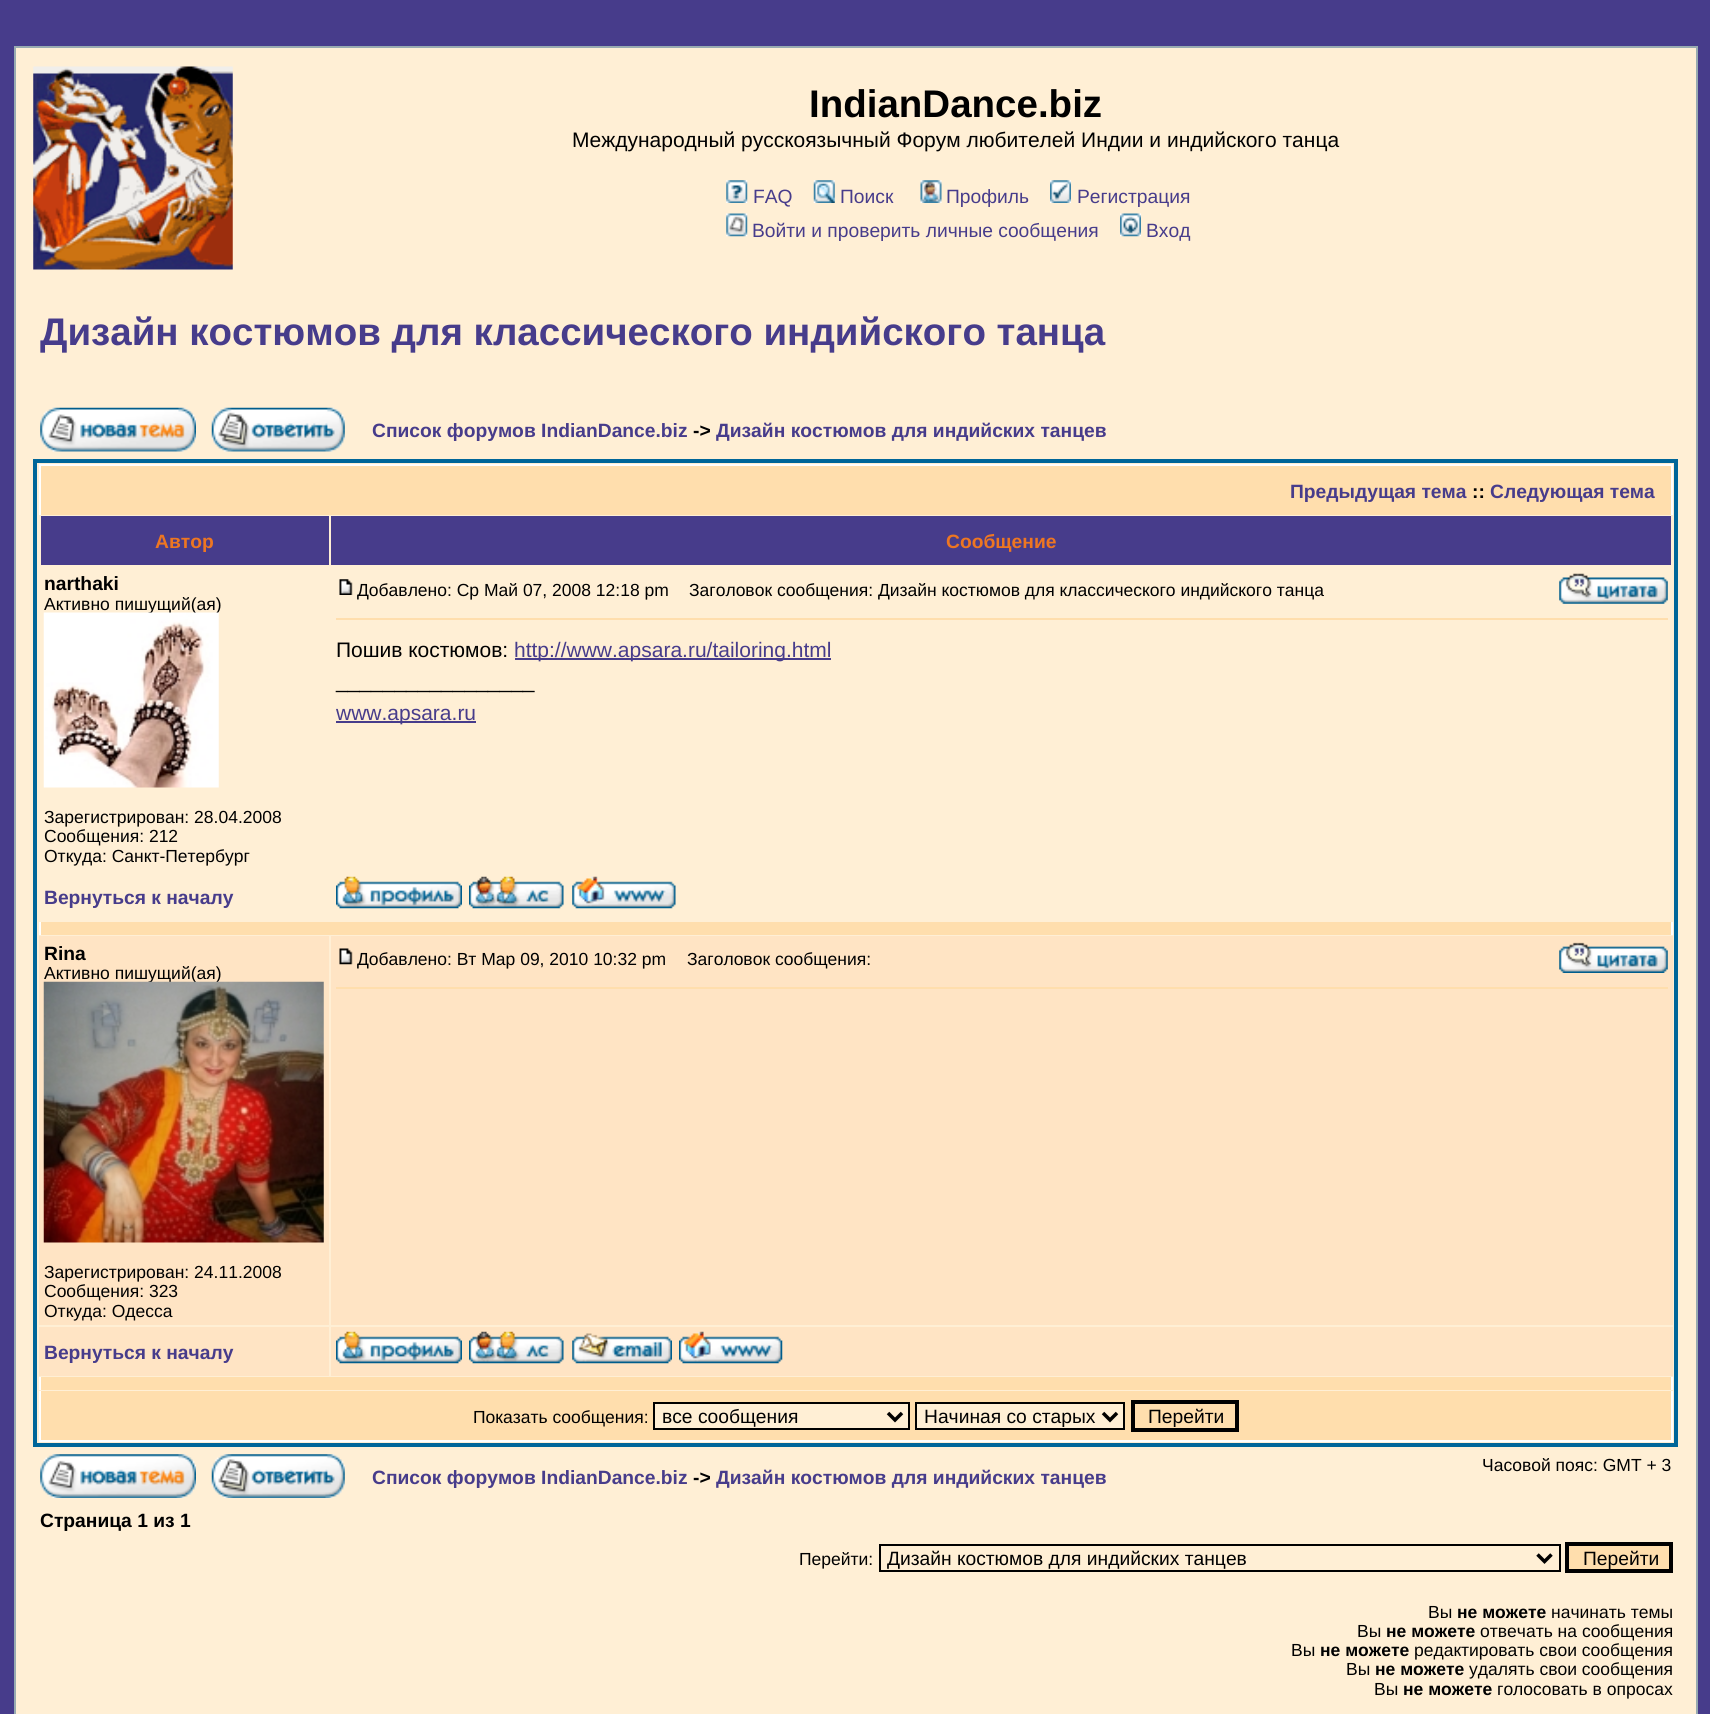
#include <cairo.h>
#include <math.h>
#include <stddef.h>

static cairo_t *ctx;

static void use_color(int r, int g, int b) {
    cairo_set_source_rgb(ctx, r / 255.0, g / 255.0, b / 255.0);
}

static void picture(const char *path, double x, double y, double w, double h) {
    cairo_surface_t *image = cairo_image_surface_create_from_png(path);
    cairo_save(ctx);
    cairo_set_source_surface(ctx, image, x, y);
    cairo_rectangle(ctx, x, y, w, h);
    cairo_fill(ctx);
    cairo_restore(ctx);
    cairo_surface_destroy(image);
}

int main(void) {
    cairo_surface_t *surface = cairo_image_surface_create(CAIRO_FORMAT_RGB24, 1710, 1714);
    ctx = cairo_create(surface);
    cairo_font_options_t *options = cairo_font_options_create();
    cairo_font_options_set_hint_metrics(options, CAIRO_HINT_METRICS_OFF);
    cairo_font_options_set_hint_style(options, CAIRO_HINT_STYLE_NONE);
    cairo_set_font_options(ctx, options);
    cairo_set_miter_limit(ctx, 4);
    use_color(71, 60, 139);
    cairo_paint(ctx);
    use_color(255, 239, 213);
    cairo_rectangle(ctx, 15, 47, 1682, 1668);
    cairo_fill_preserve(ctx);
    use_color(152, 170, 177);
    cairo_stroke(ctx);
    picture("img1.png", 33, 66, 200, 204);
    cairo_select_font_face(ctx, "Liberation Sans", CAIRO_FONT_SLANT_NORMAL, CAIRO_FONT_WEIGHT_BOLD);
    cairo_set_font_size(ctx, 38.5);
    use_color(0, 0, 0);
    cairo_move_to(ctx, 809, 117);
    cairo_show_text(ctx, "IndianDance.biz");
    cairo_select_font_face(ctx, "Liberation Sans", CAIRO_FONT_SLANT_NORMAL, CAIRO_FONT_WEIGHT_NORMAL);
    cairo_set_font_size(ctx, 21);
    cairo_move_to(ctx, 572, 147);
    cairo_show_text(ctx, "Международный русскоязычный Форум любителей Индии и индийского танца");
    picture("img2.png", 726, 180, 22, 23);
    cairo_set_font_size(ctx, 19.25);
    use_color(71, 60, 139);
    cairo_move_to(ctx, 753, 203);
    cairo_show_text(ctx, "FAQ");
    picture("img3.png", 813, 180, 22, 23);
    cairo_move_to(ctx, 840, 203);
    cairo_show_text(ctx, "Поиск");
    picture("img4.png", 920, 180, 22, 23);
    cairo_move_to(ctx, 946, 203);
    cairo_show_text(ctx, "Профиль");
    picture("img5.png", 1050, 180, 21, 23);
    cairo_move_to(ctx, 1077, 203);
    cairo_show_text(ctx, "Регистрация");
    picture("img6.png", 726, 213, 22, 24);
    cairo_move_to(ctx, 752, 237);
    cairo_show_text(ctx, "Войти и проверить личные сообщения");
    picture("img7.png", 1120, 213, 21, 24);
    cairo_move_to(ctx, 1146, 237);
    cairo_show_text(ctx, "Вход");
    cairo_select_font_face(ctx, "Liberation Sans", CAIRO_FONT_SLANT_NORMAL, CAIRO_FONT_WEIGHT_BOLD);
    cairo_set_font_size(ctx, 38.5);
    cairo_move_to(ctx, 40, 345);
    cairo_show_text(ctx, "Дизайн костюмов для классического индийского танца");
    picture("img8.png", 40, 407, 156, 45);
    picture("img9.png", 211, 407, 134, 45);
    cairo_set_font_size(ctx, 19.25);
    cairo_move_to(ctx, 372, 437);
    cairo_show_text(ctx, "Список форумов IndianDance.biz");
    use_color(0, 0, 0);
    cairo_move_to(ctx, 693, 437);
    cairo_show_text(ctx, "->");
    use_color(71, 60, 139);
    cairo_move_to(ctx, 716, 437);
    cairo_show_text(ctx, "Дизайн костюмов для индийских танцев");
    cairo_rectangle(ctx, 35, 461, 1641, 984);
    use_color(0, 102, 153);
    cairo_set_line_width(ctx, 4);
    cairo_stroke(ctx);
    use_color(255, 222, 173);
    cairo_rectangle(ctx, 41, 466, 1630, 49);
    cairo_fill(ctx);
    use_color(255, 255, 255);
    cairo_rectangle(ctx, 39, 464, 1634, 2);
    cairo_fill(ctx);
    cairo_rectangle(ctx, 1671, 464, 2, 51);
    cairo_fill(ctx);
    cairo_rectangle(ctx, 39, 464, 2, 51);
    cairo_fill(ctx);
    use_color(71, 60, 139);
    cairo_move_to(ctx, 1290, 498);
    cairo_show_text(ctx, "Предыдущая тема");
    use_color(0, 0, 0);
    cairo_move_to(ctx, 1472, 498);
    cairo_show_text(ctx, "::");
    use_color(71, 60, 139);
    cairo_move_to(ctx, 1490, 498);
    cairo_show_text(ctx, "Следующая тема");
    cairo_rectangle(ctx, 41, 516, 288, 49);
    cairo_fill(ctx);
    use_color(238, 118, 33);
    cairo_move_to(ctx, 155, 548);
    cairo_show_text(ctx, "Автор");
    use_color(71, 60, 139);
    cairo_rectangle(ctx, 331, 516, 1340, 49);
    cairo_fill(ctx);
    use_color(238, 118, 33);
    cairo_move_to(ctx, 946, 548);
    cairo_show_text(ctx, "Сообщение");
    use_color(0, 0, 0);
    cairo_move_to(ctx, 44, 590);
    cairo_show_text(ctx, "narthaki");
    cairo_select_font_face(ctx, "Liberation Sans", CAIRO_FONT_SLANT_NORMAL, CAIRO_FONT_WEIGHT_NORMAL);
    cairo_set_font_size(ctx, 17.5);
    cairo_move_to(ctx, 44, 610);
    cairo_show_text(ctx, "Активно пишущий(ая)");
    picture("img10.png", 43, 612, 176, 176);
    cairo_move_to(ctx, 44, 823);
    cairo_show_text(ctx, "Зарегистрирован: 28.04.2008");
    cairo_move_to(ctx, 44, 842);
    cairo_show_text(ctx, "Сообщения: 212");
    cairo_move_to(ctx, 44, 862);
    cairo_show_text(ctx, "Откуда: Санкт-Петербург");
    picture("img11.png", 339, 579, 14, 16);
    cairo_move_to(ctx, 357, 596);
    cairo_show_text(ctx, "Добавлено: Ср Май 07, 2008 12:18 pm");
    cairo_move_to(ctx, 689, 596);
    cairo_show_text(ctx, "Заголовок сообщения: Дизайн костюмов для классического индийского танца");
    picture("img12.png", 1559, 573, 109, 31);
    use_color(255, 222, 173);
    cairo_rectangle(ctx, 336, 618, 1332, 2);
    cairo_fill(ctx);
    cairo_set_font_size(ctx, 21);
    use_color(0, 0, 0);
    cairo_move_to(ctx, 336, 657);
    cairo_show_text(ctx, "Пошив костюмов:");
    use_color(71, 60, 139);
    cairo_rectangle(ctx, 515, 658, 316, 2);
    cairo_fill(ctx);
    cairo_move_to(ctx, 514, 657);
    cairo_show_text(ctx, "http://www.apsara.ru/tailoring.html");
    use_color(0, 0, 0);
    cairo_move_to(ctx, 336, 688);
    cairo_show_text(ctx, "_________________");
    use_color(71, 60, 139);
    cairo_rectangle(ctx, 336, 721, 140, 2);
    cairo_fill(ctx);
    cairo_move_to(ctx, 336, 720);
    cairo_show_text(ctx, "www.apsara.ru");
    cairo_select_font_face(ctx, "Liberation Sans", CAIRO_FONT_SLANT_NORMAL, CAIRO_FONT_WEIGHT_BOLD);
    cairo_set_font_size(ctx, 19.25);
    cairo_move_to(ctx, 44, 904);
    cairo_show_text(ctx, "Вернуться к началу");
    picture("img13.png", 336, 876, 126, 33);
    picture("img14.png", 469, 876, 95, 33);
    picture("img15.png", 572, 876, 104, 33);
    use_color(255, 222, 173);
    cairo_rectangle(ctx, 41, 922, 1630, 13);
    cairo_fill(ctx);
    use_color(255, 255, 255);
    cairo_rectangle(ctx, 1671, 922, 2, 13);
    cairo_fill(ctx);
    cairo_rectangle(ctx, 39, 922, 2, 13);
    cairo_fill(ctx);
    use_color(255, 228, 196);
    cairo_rectangle(ctx, 39, 936, 290, 389);
    cairo_fill(ctx);
    use_color(0, 0, 0);
    cairo_move_to(ctx, 44, 960);
    cairo_show_text(ctx, "Rina");
    cairo_select_font_face(ctx, "Liberation Sans", CAIRO_FONT_SLANT_NORMAL, CAIRO_FONT_WEIGHT_NORMAL);
    cairo_set_font_size(ctx, 17.5);
    cairo_move_to(ctx, 44, 979);
    cairo_show_text(ctx, "Активно пишущий(ая)");
    picture("img16.png", 43, 981, 281, 262);
    cairo_move_to(ctx, 44, 1278);
    cairo_show_text(ctx, "Зарегистрирован: 24.11.2008");
    cairo_move_to(ctx, 44, 1297);
    cairo_show_text(ctx, "Сообщения: 323");
    cairo_move_to(ctx, 44, 1317);
    cairo_show_text(ctx, "Откуда: Одесса");
    use_color(255, 228, 196);
    cairo_rectangle(ctx, 331, 936, 1342, 389);
    cairo_fill(ctx);
    picture("img17.png", 339, 948, 14, 17);
    use_color(0, 0, 0);
    cairo_move_to(ctx, 357, 965);
    cairo_show_text(ctx, "Добавлено: Вт Мар 09, 2010 10:32 pm");
    cairo_move_to(ctx, 687, 965);
    cairo_show_text(ctx, "Заголовок сообщения:");
    picture("img18.png", 1559, 942, 109, 31);
    use_color(255, 222, 173);
    cairo_rectangle(ctx, 336, 987, 1332, 2);
    cairo_fill(ctx);
    use_color(255, 228, 196);
    cairo_rectangle(ctx, 39, 1327, 290, 49);
    cairo_fill(ctx);
    cairo_select_font_face(ctx, "Liberation Sans", CAIRO_FONT_SLANT_NORMAL, CAIRO_FONT_WEIGHT_BOLD);
    cairo_set_font_size(ctx, 19.25);
    use_color(71, 60, 139);
    cairo_move_to(ctx, 44, 1359);
    cairo_show_text(ctx, "Вернуться к началу");
    use_color(255, 228, 196);
    cairo_rectangle(ctx, 331, 1327, 1342, 49);
    cairo_fill(ctx);
    picture("img19.png", 336, 1331, 126, 33);
    picture("img20.png", 469, 1331, 95, 33);
    picture("img21.png", 572, 1333, 100, 31);
    picture("img22.png", 679, 1331, 104, 33);
    use_color(255, 222, 173);
    cairo_rectangle(ctx, 41, 1377, 1630, 13);
    cairo_fill(ctx);
    use_color(255, 255, 255);
    cairo_rectangle(ctx, 1671, 1377, 2, 13);
    cairo_fill(ctx);
    cairo_rectangle(ctx, 39, 1377, 2, 13);
    cairo_fill(ctx);
    use_color(255, 222, 173);
    cairo_rectangle(ctx, 41, 1391, 1630, 49);
    cairo_fill(ctx);
    use_color(255, 255, 255);
    cairo_rectangle(ctx, 1671, 1391, 2, 51);
    cairo_fill(ctx);
    cairo_rectangle(ctx, 39, 1440, 1634, 2);
    cairo_fill(ctx);
    cairo_rectangle(ctx, 39, 1391, 2, 51);
    cairo_fill(ctx);
    cairo_select_font_face(ctx, "Liberation Sans", CAIRO_FONT_SLANT_NORMAL, CAIRO_FONT_WEIGHT_NORMAL);
    cairo_set_font_size(ctx, 17.5);
    use_color(0, 0, 0);
    cairo_move_to(ctx, 473, 1423);
    cairo_show_text(ctx, "Показать сообщения:");
    use_color(255, 239, 213);
    cairo_rectangle(ctx, 654, 1403, 255, 26);
    cairo_fill_preserve(ctx);
    use_color(0, 0, 0);
    cairo_set_line_width(ctx, 2);
    cairo_stroke(ctx);
    cairo_new_path(ctx);
    cairo_move_to(ctx, 888, 1413);
    cairo_line_to(ctx, 895, 1420);
    cairo_line_to(ctx, 902, 1413);
    cairo_set_line_width(ctx, 3.5);
    cairo_stroke(ctx);
    cairo_set_font_size(ctx, 19.25);
    cairo_move_to(ctx, 662, 1423);
    cairo_show_text(ctx, "все сообщения");
    use_color(255, 239, 213);
    cairo_rectangle(ctx, 916, 1403, 208, 26);
    cairo_fill_preserve(ctx);
    use_color(0, 0, 0);
    cairo_set_line_width(ctx, 2);
    cairo_stroke(ctx);
    cairo_new_path(ctx);
    cairo_move_to(ctx, 1103, 1413);
    cairo_line_to(ctx, 1110, 1420);
    cairo_line_to(ctx, 1117, 1413);
    cairo_set_line_width(ctx, 3.5);
    cairo_stroke(ctx);
    cairo_move_to(ctx, 924, 1423);
    cairo_show_text(ctx, "Начиная со старых");
    cairo_rectangle(ctx, 1133, 1402, 104, 28);
    cairo_set_line_width(ctx, 4);
    cairo_stroke(ctx);
    cairo_move_to(ctx, 1148, 1423);
    cairo_show_text(ctx, "Перейти");
    picture("img23.png", 40, 1454, 156, 44);
    picture("img24.png", 211, 1454, 134, 44);
    cairo_set_font_size(ctx, 17.5);
    cairo_move_to(ctx, 1482, 1471);
    cairo_show_text(ctx, "Часовой пояс: GMT + 3");
    cairo_select_font_face(ctx, "Liberation Sans", CAIRO_FONT_SLANT_NORMAL, CAIRO_FONT_WEIGHT_BOLD);
    cairo_set_font_size(ctx, 19.25);
    use_color(71, 60, 139);
    cairo_move_to(ctx, 372, 1484);
    cairo_show_text(ctx, "Список форумов IndianDance.biz");
    use_color(0, 0, 0);
    cairo_move_to(ctx, 693, 1484);
    cairo_show_text(ctx, "->");
    use_color(71, 60, 139);
    cairo_move_to(ctx, 716, 1484);
    cairo_show_text(ctx, "Дизайн костюмов для индийских танцев");
    use_color(0, 0, 0);
    cairo_move_to(ctx, 40, 1527);
    cairo_show_text(ctx, "Страница 1 из 1");
    cairo_select_font_face(ctx, "Liberation Sans", CAIRO_FONT_SLANT_NORMAL, CAIRO_FONT_WEIGHT_NORMAL);
    cairo_set_font_size(ctx, 17.5);
    cairo_move_to(ctx, 799, 1565);
    cairo_show_text(ctx, "Перейти:");
    cairo_rectangle(ctx, 880, 1545, 680, 26);
    cairo_set_line_width(ctx, 2);
    cairo_stroke(ctx);
    cairo_new_path(ctx);
    cairo_move_to(ctx, 1537.5, 1554.5);
    cairo_line_to(ctx, 1544.5, 1561.5);
    cairo_line_to(ctx, 1551.5, 1554.5);
    cairo_set_line_width(ctx, 3.5);
    cairo_stroke(ctx);
    cairo_save(ctx);
    cairo_rectangle(ctx, 887, 1545, 644, 25);
    cairo_clip(ctx);
    cairo_set_font_size(ctx, 19.25);
    cairo_move_to(ctx, 887, 1565);
    cairo_show_text(ctx, "Дизайн костюмов для индийских танцев");
    cairo_restore(ctx);
    use_color(255, 222, 173);
    cairo_rectangle(ctx, 1567, 1544, 104, 27);
    cairo_fill_preserve(ctx);
    use_color(0, 0, 0);
    cairo_set_line_width(ctx, 4);
    cairo_stroke(ctx);
    cairo_set_font_size(ctx, 19.25);
    cairo_move_to(ctx, 1583, 1565);
    cairo_show_text(ctx, "Перейти");
    cairo_set_font_size(ctx, 17.5);
    cairo_move_to(ctx, 1428, 1618);
    cairo_show_text(ctx, "Вы");
    cairo_select_font_face(ctx, "Liberation Sans", CAIRO_FONT_SLANT_NORMAL, CAIRO_FONT_WEIGHT_BOLD);
    cairo_move_to(ctx, 1457, 1618);
    cairo_show_text(ctx, "не можете");
    cairo_select_font_face(ctx, "Liberation Sans", CAIRO_FONT_SLANT_NORMAL, CAIRO_FONT_WEIGHT_NORMAL);
    cairo_move_to(ctx, 1551, 1618);
    cairo_show_text(ctx, "начинать темы");
    cairo_move_to(ctx, 1357, 1637);
    cairo_show_text(ctx, "Вы");
    cairo_select_font_face(ctx, "Liberation Sans", CAIRO_FONT_SLANT_NORMAL, CAIRO_FONT_WEIGHT_BOLD);
    cairo_move_to(ctx, 1386, 1637);
    cairo_show_text(ctx, "не можете");
    cairo_select_font_face(ctx, "Liberation Sans", CAIRO_FONT_SLANT_NORMAL, CAIRO_FONT_WEIGHT_NORMAL);
    cairo_move_to(ctx, 1480, 1637);
    cairo_show_text(ctx, "отвечать на сообщения");
    cairo_move_to(ctx, 1291, 1656);
    cairo_show_text(ctx, "Вы");
    cairo_select_font_face(ctx, "Liberation Sans", CAIRO_FONT_SLANT_NORMAL, CAIRO_FONT_WEIGHT_BOLD);
    cairo_move_to(ctx, 1320, 1656);
    cairo_show_text(ctx, "не можете");
    cairo_select_font_face(ctx, "Liberation Sans", CAIRO_FONT_SLANT_NORMAL, CAIRO_FONT_WEIGHT_NORMAL);
    cairo_move_to(ctx, 1414, 1656);
    cairo_show_text(ctx, "редактировать свои сообщения");
    cairo_move_to(ctx, 1346, 1675);
    cairo_show_text(ctx, "Вы");
    cairo_select_font_face(ctx, "Liberation Sans", CAIRO_FONT_SLANT_NORMAL, CAIRO_FONT_WEIGHT_BOLD);
    cairo_move_to(ctx, 1375, 1675);
    cairo_show_text(ctx, "не можете");
    cairo_select_font_face(ctx, "Liberation Sans", CAIRO_FONT_SLANT_NORMAL, CAIRO_FONT_WEIGHT_NORMAL);
    cairo_move_to(ctx, 1469, 1675);
    cairo_show_text(ctx, "удалять свои сообщения");
    cairo_move_to(ctx, 1374, 1695);
    cairo_show_text(ctx, "Вы");
    cairo_select_font_face(ctx, "Liberation Sans", CAIRO_FONT_SLANT_NORMAL, CAIRO_FONT_WEIGHT_BOLD);
    cairo_move_to(ctx, 1403, 1695);
    cairo_show_text(ctx, "не можете");
    cairo_select_font_face(ctx, "Liberation Sans", CAIRO_FONT_SLANT_NORMAL, CAIRO_FONT_WEIGHT_NORMAL);
    cairo_move_to(ctx, 1497, 1695);
    cairo_show_text(ctx, "голосовать в опросах");
    cairo_surface_write_to_png(surface, "result.png");
    cairo_font_options_destroy(options);
    cairo_destroy(ctx);
    cairo_surface_destroy(surface);
    return 0;
}
